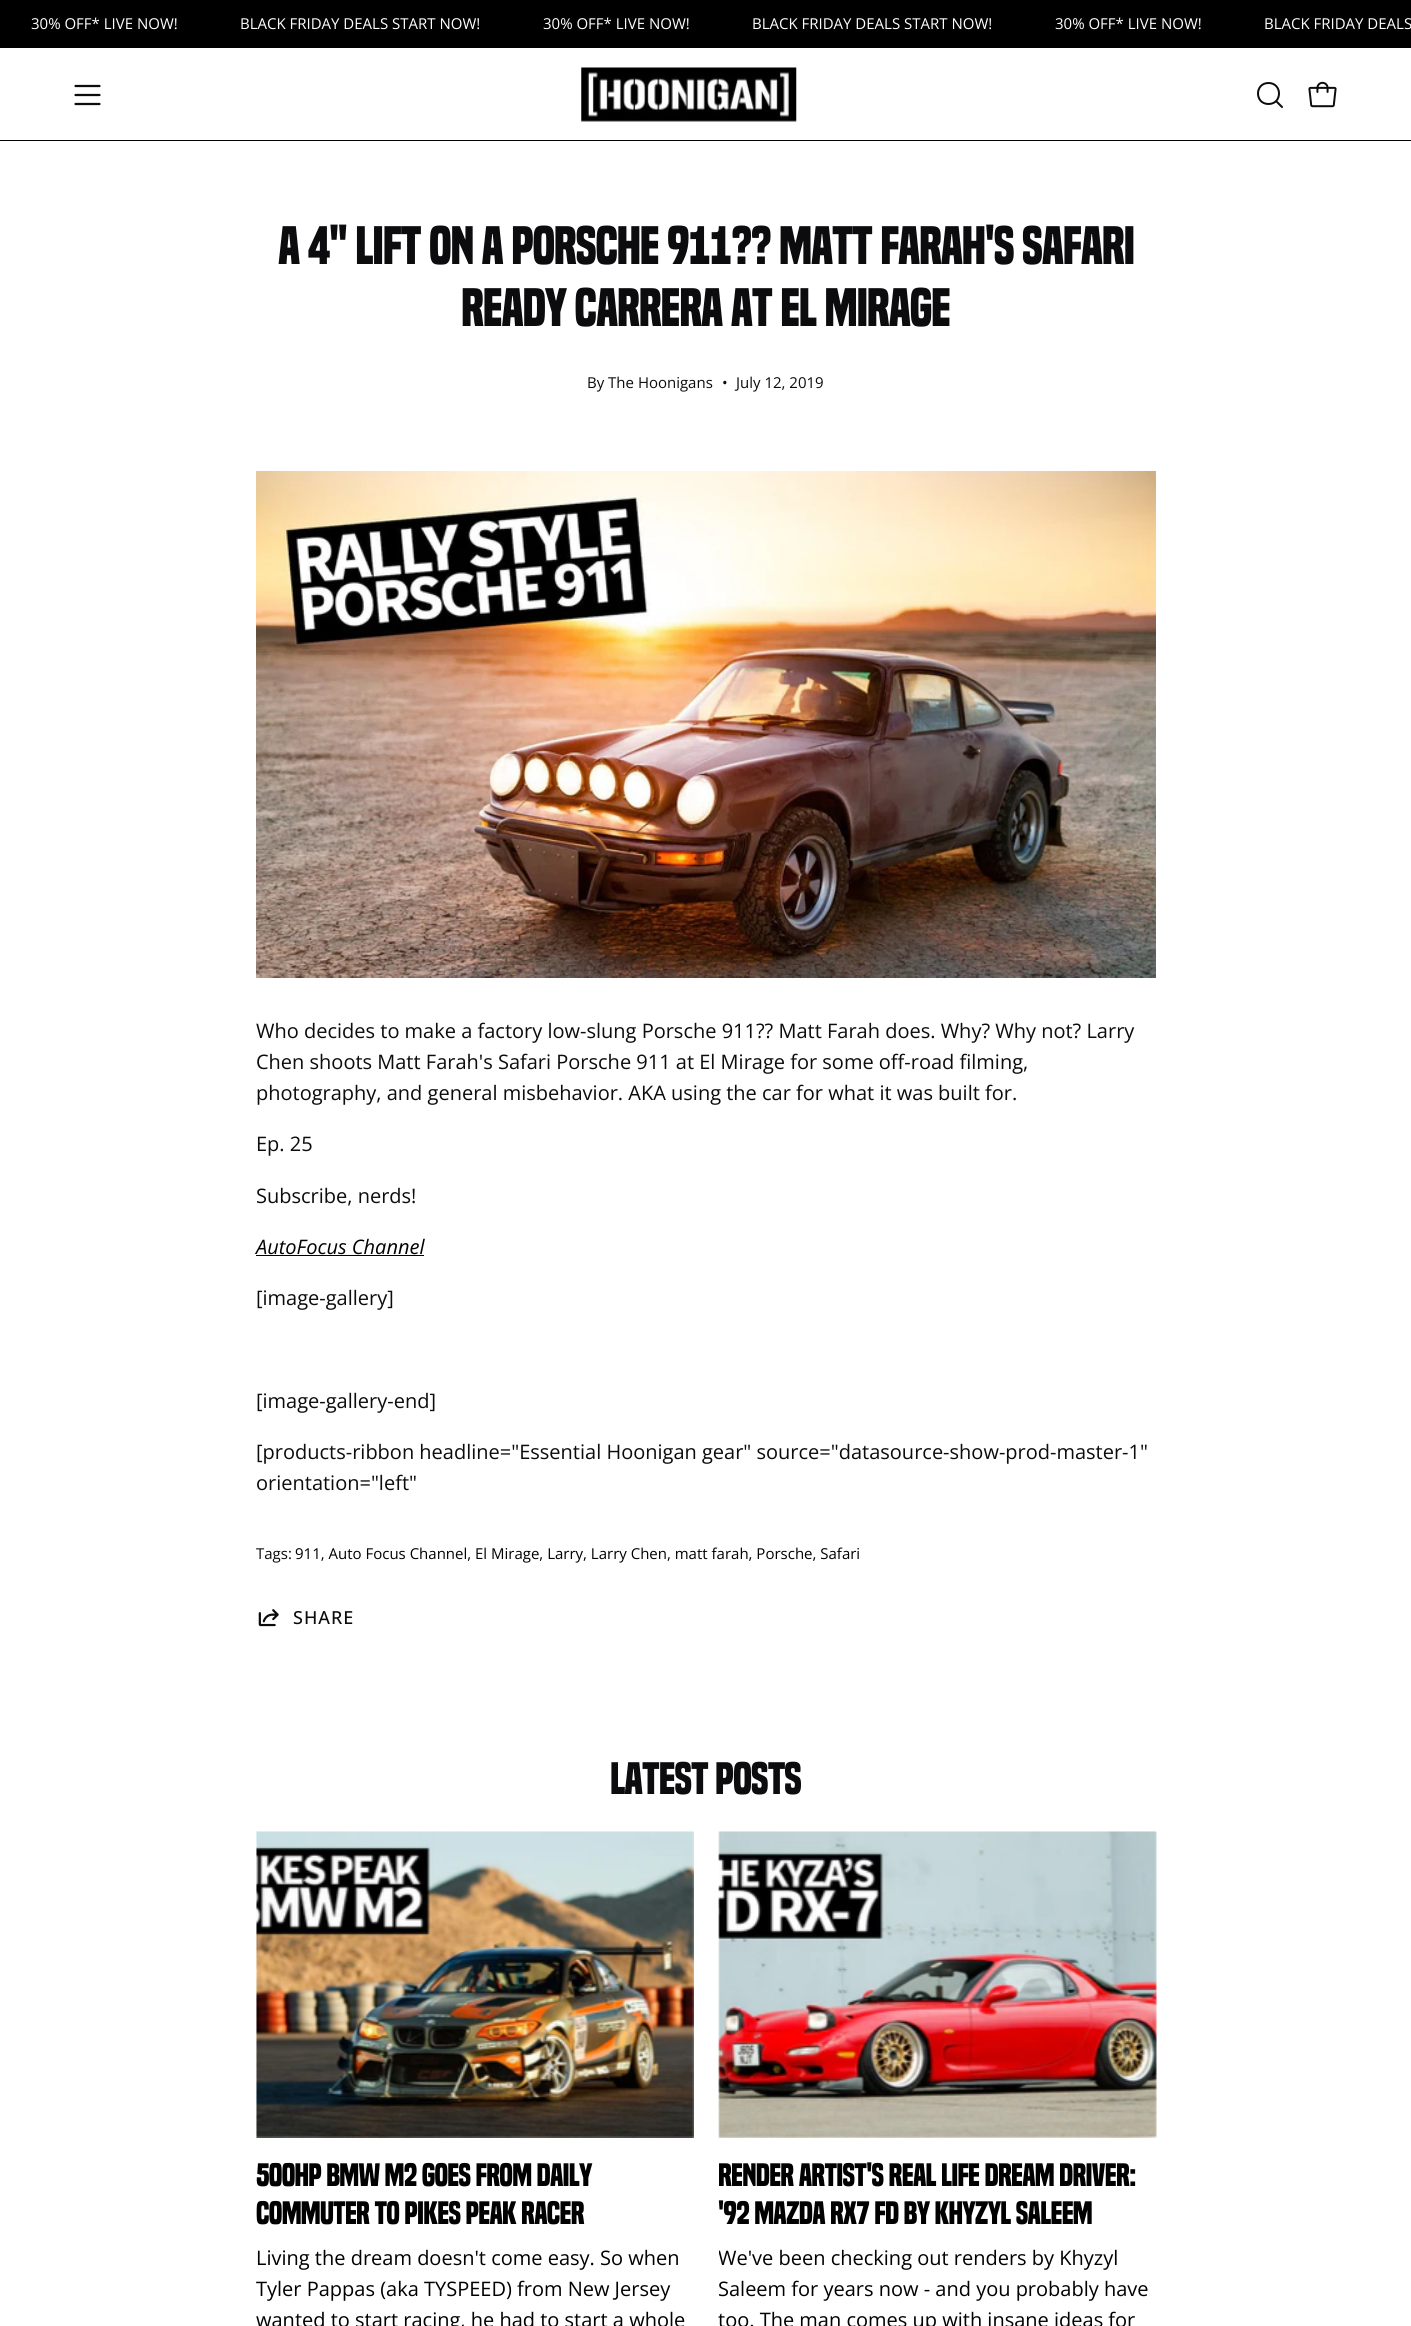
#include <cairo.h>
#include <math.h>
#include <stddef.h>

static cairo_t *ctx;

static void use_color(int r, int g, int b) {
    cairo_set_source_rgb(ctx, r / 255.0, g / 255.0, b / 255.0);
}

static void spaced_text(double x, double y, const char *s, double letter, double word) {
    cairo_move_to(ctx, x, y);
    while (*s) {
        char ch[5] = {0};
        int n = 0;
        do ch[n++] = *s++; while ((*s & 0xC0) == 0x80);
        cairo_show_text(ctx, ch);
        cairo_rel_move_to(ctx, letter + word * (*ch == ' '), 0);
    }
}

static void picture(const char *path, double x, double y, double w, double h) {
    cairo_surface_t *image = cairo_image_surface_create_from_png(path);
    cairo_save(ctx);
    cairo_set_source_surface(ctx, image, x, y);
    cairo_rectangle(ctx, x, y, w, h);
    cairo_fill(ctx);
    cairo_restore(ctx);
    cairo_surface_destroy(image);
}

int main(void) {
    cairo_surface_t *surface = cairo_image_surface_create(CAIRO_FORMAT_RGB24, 1411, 2326);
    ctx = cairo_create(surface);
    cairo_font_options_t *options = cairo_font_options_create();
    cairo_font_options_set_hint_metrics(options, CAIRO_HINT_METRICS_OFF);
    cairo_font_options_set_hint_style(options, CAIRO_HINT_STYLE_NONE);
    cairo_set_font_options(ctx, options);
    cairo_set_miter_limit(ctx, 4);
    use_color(255, 255, 255);
    cairo_paint(ctx);
    use_color(0, 0, 0);
    cairo_rectangle(ctx, 0, 0, 1411, 48);
    cairo_fill(ctx);
    cairo_select_font_face(ctx, "Open Sans", CAIRO_FONT_SLANT_NORMAL, CAIRO_FONT_WEIGHT_NORMAL);
    cairo_set_font_size(ctx, 15);
    use_color(255, 255, 255);
    cairo_move_to(ctx, 31, 29);
    cairo_show_text(ctx, "30% OFF* LIVE NOW!");
    cairo_move_to(ctx, 240, 29);
    cairo_show_text(ctx, "BLACK FRIDAY DEALS START NOW!");
    cairo_move_to(ctx, 543, 29);
    cairo_show_text(ctx, "30% OFF* LIVE NOW!");
    cairo_move_to(ctx, 752, 29);
    cairo_show_text(ctx, "BLACK FRIDAY DEALS START NOW!");
    cairo_move_to(ctx, 1055, 29);
    cairo_show_text(ctx, "30% OFF* LIVE NOW!");
    cairo_move_to(ctx, 1264, 29);
    cairo_show_text(ctx, "BLACK FRIDAY DEALS");
    cairo_new_path(ctx);
    cairo_move_to(ctx, 75.5, 95);
    cairo_line_to(ctx, 99.5, 95);
    cairo_move_to(ctx, 75.5, 86);
    cairo_line_to(ctx, 99.5, 86);
    cairo_move_to(ctx, 75.5, 104);
    cairo_line_to(ctx, 99.5, 104);
    use_color(12, 12, 15);
    cairo_set_line_width(ctx, 2.2);
    cairo_set_line_cap(ctx, CAIRO_LINE_CAP_ROUND);
    cairo_set_line_join(ctx, CAIRO_LINE_JOIN_ROUND);
    cairo_stroke(ctx);
    picture("img1.png", 581, 67, 216, 55);
    cairo_new_path(ctx);
    cairo_move_to(ctx, 1268.5, 104);
    cairo_curve_to(ctx, 1282.5, 104, 1282.5, 83, 1268.5, 83);
    cairo_curve_to(ctx, 1254.5, 83, 1254.5, 104, 1268.5, 104);
    cairo_close_path(ctx);
    cairo_move_to(ctx, 1276, 101);
    cairo_line_to(ctx, 1282, 107);
    cairo_set_line_width(ctx, 2);
    cairo_stroke(ctx);
    picture("img2.png", 1308, 81, 29, 27);
    use_color(0, 0, 0);
    cairo_rectangle(ctx, 0, 140, 1411, 1);
    cairo_fill(ctx);
    cairo_select_font_face(ctx, "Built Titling", CAIRO_FONT_SLANT_NORMAL, CAIRO_FONT_WEIGHT_BOLD);
    cairo_set_font_size(ctx, 50);
    use_color(12, 12, 15);
    spaced_text(278, 264, "A 4\" LIFT ON A PORSCHE 911?\077 MATT FARAH'S SAFARI", -1.25, 0);
    spaced_text(461, 326, "READY CARRERA AT EL MIRAGE", -1.25, 0);
    cairo_select_font_face(ctx, "Open Sans", CAIRO_FONT_SLANT_NORMAL, CAIRO_FONT_WEIGHT_NORMAL);
    cairo_set_font_size(ctx, 15);
    cairo_move_to(ctx, 587, 388);
    cairo_show_text(ctx, "By The Hoonigans");
    cairo_move_to(ctx, 722, 388);
    cairo_show_text(ctx, "•");
    cairo_move_to(ctx, 736, 388);
    cairo_show_text(ctx, "July 12, 2019");
    picture("img3.png", 256, 471, 900, 507);
    cairo_set_font_size(ctx, 20);
    cairo_move_to(ctx, 256, 1038);
    cairo_show_text(ctx, "Who decides to make a factory low-slung Porsche 911?\077 Matt Farah does. Why? Why not? Larry");
    cairo_move_to(ctx, 256, 1069);
    cairo_show_text(ctx, "Chen shoots Matt Farah's Safari Porsche 911 at El Mirage for some off-road filming,");
    cairo_move_to(ctx, 256, 1100);
    cairo_show_text(ctx, "photography, and general misbehavior. AKA using the car for what it was built for.");
    cairo_move_to(ctx, 256, 1151);
    cairo_show_text(ctx, "Ep. 25");
    cairo_move_to(ctx, 256, 1203);
    cairo_show_text(ctx, "Subscribe, nerds!");
    cairo_select_font_face(ctx, "Open Sans", CAIRO_FONT_SLANT_ITALIC, CAIRO_FONT_WEIGHT_NORMAL);
    use_color(0, 0, 0);
    cairo_move_to(ctx, 256, 1254);
    cairo_show_text(ctx, "AutoFocus Channel");
    cairo_rectangle(ctx, 256, 1255, 168, 1);
    cairo_fill(ctx);
    cairo_select_font_face(ctx, "Open Sans", CAIRO_FONT_SLANT_NORMAL, CAIRO_FONT_WEIGHT_NORMAL);
    use_color(12, 12, 15);
    cairo_move_to(ctx, 256, 1305);
    cairo_show_text(ctx, "[image-gallery]");
    cairo_move_to(ctx, 256, 1408);
    cairo_show_text(ctx, "[image-gallery-end]");
    cairo_move_to(ctx, 256, 1459);
    cairo_show_text(ctx, "[products-ribbon headline=\"Essential Hoonigan gear\" source=\"datasource-show-prod-master-1\"");
    cairo_move_to(ctx, 256, 1490);
    cairo_show_text(ctx, "orientation=\"left\"");
    cairo_set_font_size(ctx, 15);
    cairo_move_to(ctx, 256, 1559);
    cairo_show_text(ctx, "Tags:");
    use_color(0, 0, 0);
    cairo_move_to(ctx, 295, 1559);
    cairo_show_text(ctx, "911, Auto Focus Channel, El Mirage, Larry, Larry Chen, matt farah, Porsche, Safari");
    picture("img4.png", 258, 1609, 21, 18);
    cairo_select_font_face(ctx, "Open Sans Medium", CAIRO_FONT_SLANT_NORMAL, CAIRO_FONT_WEIGHT_NORMAL);
    cairo_set_font_size(ctx, 18);
    use_color(12, 12, 15);
    spaced_text(293, 1624, "SHARE", 1, 0);
    cairo_select_font_face(ctx, "Built Titling", CAIRO_FONT_SLANT_NORMAL, CAIRO_FONT_WEIGHT_BOLD);
    cairo_set_font_size(ctx, 42);
    spaced_text(610, 1794, "LATEST POSTS", -1, 0);
    picture("img5.png", 256, 1831, 438, 307);
    cairo_set_font_size(ctx, 30);
    use_color(0, 0, 0);
    spaced_text(256, 2186, "500HP BMW M2 GOES FROM DAILY", -0.75, 0);
    spaced_text(256, 2224, "COMMUTER TO PIKES PEAK RACER", -0.75, 0);
    cairo_select_font_face(ctx, "Open Sans", CAIRO_FONT_SLANT_NORMAL, CAIRO_FONT_WEIGHT_NORMAL);
    cairo_set_font_size(ctx, 20);
    cairo_move_to(ctx, 256, 2265);
    cairo_show_text(ctx, "Living the dream doesn't come easy. So when");
    cairo_move_to(ctx, 256, 2296);
    cairo_show_text(ctx, "Tyler Pappas (aka TYSPEED) from New Jersey");
    cairo_move_to(ctx, 256, 2327);
    cairo_show_text(ctx, "wanted to start racing, he had to start a whole");
    picture("img6.png", 718, 1831, 439, 307);
    cairo_select_font_face(ctx, "Built Titling", CAIRO_FONT_SLANT_NORMAL, CAIRO_FONT_WEIGHT_BOLD);
    cairo_set_font_size(ctx, 30);
    spaced_text(718, 2186, "RENDER ARTIST'S REAL LIFE DREAM DRIVER:", -0.75, 0);
    spaced_text(718, 2224, "'92 MAZDA RX7 FD BY KHYZYL SALEEM", -0.75, 0);
    cairo_save(ctx);
    cairo_rectangle(ctx, 719, 2243, 437, 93);
    cairo_clip(ctx);
    cairo_select_font_face(ctx, "Open Sans", CAIRO_FONT_SLANT_NORMAL, CAIRO_FONT_WEIGHT_NORMAL);
    cairo_set_font_size(ctx, 20);
    cairo_move_to(ctx, 718, 2265);
    cairo_show_text(ctx, "We've been checking out renders by Khyzyl");
    cairo_restore(ctx);
    cairo_select_font_face(ctx, "Open Sans", CAIRO_FONT_SLANT_NORMAL, CAIRO_FONT_WEIGHT_NORMAL);
    cairo_set_font_size(ctx, 20);
    cairo_move_to(ctx, 718, 2296);
    cairo_show_text(ctx, "Saleem for years now - and you probably have");
    cairo_move_to(ctx, 718, 2327);
    cairo_show_text(ctx, "too. The man comes up with insane ideas for");
    cairo_surface_write_to_png(surface, "result.png");
    cairo_font_options_destroy(options);
    cairo_destroy(ctx);
    cairo_surface_destroy(surface);
    return 0;
}
